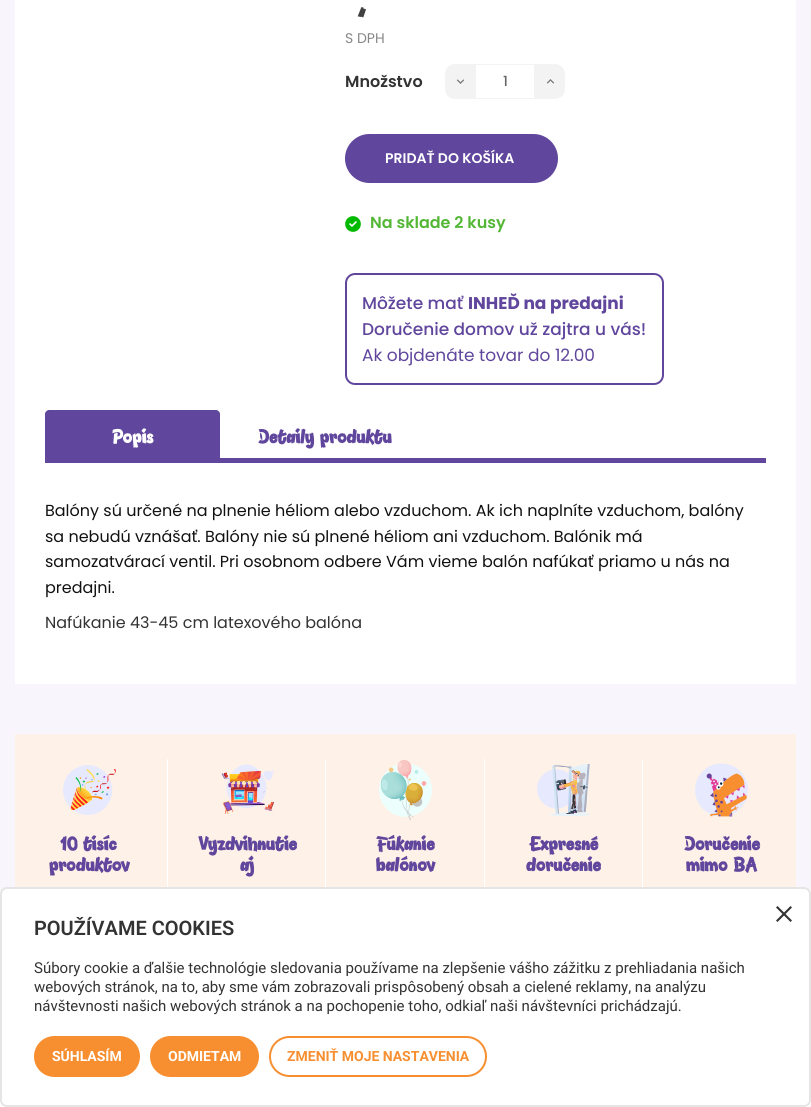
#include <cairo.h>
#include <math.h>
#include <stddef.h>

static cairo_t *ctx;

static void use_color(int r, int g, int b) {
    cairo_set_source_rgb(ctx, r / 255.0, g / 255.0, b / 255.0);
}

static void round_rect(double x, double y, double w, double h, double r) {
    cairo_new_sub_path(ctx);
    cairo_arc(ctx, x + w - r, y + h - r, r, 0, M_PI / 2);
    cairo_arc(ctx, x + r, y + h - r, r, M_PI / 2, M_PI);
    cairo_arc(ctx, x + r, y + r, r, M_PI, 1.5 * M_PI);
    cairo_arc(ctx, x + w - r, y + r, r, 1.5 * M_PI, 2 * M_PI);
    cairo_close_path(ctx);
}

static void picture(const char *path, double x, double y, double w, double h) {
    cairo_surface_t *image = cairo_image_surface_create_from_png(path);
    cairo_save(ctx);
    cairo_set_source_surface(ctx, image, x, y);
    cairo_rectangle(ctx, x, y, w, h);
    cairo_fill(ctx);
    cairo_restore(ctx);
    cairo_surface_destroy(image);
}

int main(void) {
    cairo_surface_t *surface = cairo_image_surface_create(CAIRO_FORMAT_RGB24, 811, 1107);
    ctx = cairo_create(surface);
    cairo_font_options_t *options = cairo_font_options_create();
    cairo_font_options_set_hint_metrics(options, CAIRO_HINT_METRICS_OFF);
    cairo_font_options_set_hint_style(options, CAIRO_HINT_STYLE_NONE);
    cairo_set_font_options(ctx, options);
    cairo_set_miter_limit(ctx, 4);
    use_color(248, 246, 252);
    cairo_paint(ctx);
    use_color(255, 255, 255);
    cairo_rectangle(ctx, 15, 0, 781, 684);
    cairo_fill(ctx);
    cairo_select_font_face(ctx, "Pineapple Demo", CAIRO_FONT_SLANT_NORMAL, CAIRO_FONT_WEIGHT_BOLD);
    cairo_set_font_size(ctx, 28);
    use_color(65, 65, 65);
    cairo_move_to(ctx, 359, 13);
    cairo_show_text(ctx, ",");
    cairo_select_font_face(ctx, "Poppins", CAIRO_FONT_SLANT_NORMAL, CAIRO_FONT_WEIGHT_NORMAL);
    cairo_set_font_size(ctx, 14);
    use_color(135, 135, 135);
    cairo_move_to(ctx, 345, 43);
    cairo_show_text(ctx, "S DPH");
    cairo_select_font_face(ctx, "Poppins SemiBold", CAIRO_FONT_SLANT_NORMAL, CAIRO_FONT_WEIGHT_NORMAL);
    cairo_set_font_size(ctx, 16);
    use_color(51, 51, 51);
    cairo_move_to(ctx, 345, 87);
    cairo_show_text(ctx, "Množstvo");
    use_color(243, 243, 243);
    cairo_new_path(ctx);
    cairo_move_to(ctx, 455, 64);
    cairo_line_to(ctx, 475, 64);
    cairo_line_to(ctx, 475, 99);
    cairo_line_to(ctx, 455, 99);
    cairo_curve_to(ctx, 449.5, 99, 445, 94.5, 445, 89);
    cairo_line_to(ctx, 445, 74);
    cairo_curve_to(ctx, 445, 68.5, 449.5, 64, 455, 64);
    cairo_close_path(ctx);
    cairo_fill(ctx);
    picture("img1.png", 456, 79, 9, 5);
    cairo_new_path(ctx);
    cairo_move_to(ctx, 535, 64);
    cairo_line_to(ctx, 555, 64);
    cairo_curve_to(ctx, 560.5, 64, 565, 68.5, 565, 74);
    cairo_line_to(ctx, 565, 89);
    cairo_curve_to(ctx, 565, 94.5, 560.5, 99, 555, 99);
    cairo_line_to(ctx, 535, 99);
    cairo_close_path(ctx);
    cairo_fill(ctx);
    picture("img2.png", 546, 79, 9, 5);
    cairo_rectangle(ctx, 475.5, 64.5, 59, 34);
    cairo_set_line_width(ctx, 1);
    cairo_stroke(ctx);
    cairo_select_font_face(ctx, "Poppins Medium", CAIRO_FONT_SLANT_NORMAL, CAIRO_FONT_WEIGHT_NORMAL);
    cairo_set_font_size(ctx, 14);
    use_color(102, 102, 102);
    cairo_move_to(ctx, 503, 86);
    cairo_show_text(ctx, "1");
    use_color(96, 70, 156);
    round_rect(345, 134, 213, 49, 24.5);
    cairo_fill(ctx);
    cairo_select_font_face(ctx, "Poppins SemiBold", CAIRO_FONT_SLANT_NORMAL, CAIRO_FONT_WEIGHT_NORMAL);
    use_color(255, 255, 255);
    cairo_move_to(ctx, 385, 163);
    cairo_show_text(ctx, "PRIDAŤ DO KOŠÍKA");
    picture("img3.png", 345, 216, 16, 16);
    cairo_set_font_size(ctx, 16);
    use_color(83, 183, 53);
    cairo_move_to(ctx, 370, 228);
    cairo_show_text(ctx, "Na sklade 2 kusy");
    round_rect(346, 274, 317, 110, 9);
    use_color(96, 70, 156);
    cairo_set_line_width(ctx, 2);
    cairo_stroke(ctx);
    cairo_select_font_face(ctx, "Poppins Medium", CAIRO_FONT_SLANT_NORMAL, CAIRO_FONT_WEIGHT_NORMAL);
    cairo_set_font_size(ctx, 17);
    cairo_move_to(ctx, 362, 309);
    cairo_show_text(ctx, "Môžete mať");
    cairo_select_font_face(ctx, "Poppins", CAIRO_FONT_SLANT_NORMAL, CAIRO_FONT_WEIGHT_BOLD);
    cairo_move_to(ctx, 468, 309);
    cairo_show_text(ctx, "INHEĎ na predajni");
    cairo_select_font_face(ctx, "Poppins Medium", CAIRO_FONT_SLANT_NORMAL, CAIRO_FONT_WEIGHT_NORMAL);
    cairo_move_to(ctx, 362, 335);
    cairo_show_text(ctx, "Doručenie domov už zajtra u vás!");
    cairo_select_font_face(ctx, "Poppins", CAIRO_FONT_SLANT_NORMAL, CAIRO_FONT_WEIGHT_NORMAL);
    cairo_move_to(ctx, 362, 361);
    cairo_show_text(ctx, "Ak objdenáte tovar do 12.00");
    cairo_rectangle(ctx, 45, 458, 721, 5);
    cairo_fill(ctx);
    cairo_new_path(ctx);
    cairo_move_to(ctx, 49, 410);
    cairo_line_to(ctx, 216, 410);
    cairo_curve_to(ctx, 218, 410, 220, 412, 220, 414);
    cairo_line_to(ctx, 220, 458);
    cairo_line_to(ctx, 45, 458);
    cairo_line_to(ctx, 45, 414);
    cairo_curve_to(ctx, 45, 412, 47, 410, 49, 410);
    cairo_close_path(ctx);
    cairo_fill(ctx);
    cairo_select_font_face(ctx, "Pineapple Demo", CAIRO_FONT_SLANT_NORMAL, CAIRO_FONT_WEIGHT_BOLD);
    cairo_set_font_size(ctx, 18);
    use_color(255, 255, 255);
    cairo_move_to(ctx, 112, 443);
    cairo_show_text(ctx, "Popis");
    use_color(96, 70, 156);
    cairo_move_to(ctx, 258, 443);
    cairo_show_text(ctx, "Detaily produktu");
    cairo_select_font_face(ctx, "Poppins", CAIRO_FONT_SLANT_NORMAL, CAIRO_FONT_WEIGHT_NORMAL);
    cairo_set_font_size(ctx, 16);
    use_color(17, 17, 17);
    cairo_move_to(ctx, 45, 516);
    cairo_show_text(ctx, "Balóny sú určené na plnenie héliom alebo vzduchom. Ak ich naplníte vzduchom, balóny");
    cairo_move_to(ctx, 45, 542);
    cairo_show_text(ctx, "sa nebudú vznášať. Balóny nie sú plnené héliom ani vzduchom. Balónik má");
    cairo_move_to(ctx, 45, 567);
    cairo_show_text(ctx, "samozatvárací ventil. Pri osobnom odbere Vám vieme balón nafúkať priamo u nás na");
    cairo_move_to(ctx, 45, 593);
    cairo_show_text(ctx, "predajni.");
    use_color(51, 51, 51);
    cairo_move_to(ctx, 45, 628);
    cairo_show_text(ctx, "Nafúkanie 43-45 cm latexového balóna");
    use_color(254, 241, 231);
    cairo_rectangle(ctx, 15, 734, 781, 153);
    cairo_fill(ctx);
    picture("img4.png", 63, 765, 53, 50);
    use_color(255, 255, 255);
    cairo_rectangle(ctx, 167, 759, 1, 128);
    cairo_fill(ctx);
    cairo_select_font_face(ctx, "Pineapple Demo", CAIRO_FONT_SLANT_NORMAL, CAIRO_FONT_WEIGHT_BOLD);
    cairo_set_font_size(ctx, 18);
    use_color(96, 70, 156);
    cairo_move_to(ctx, 61, 850);
    cairo_show_text(ctx, "10 tisíc");
    cairo_move_to(ctx, 49, 871);
    cairo_show_text(ctx, "produktov");
    picture("img5.png", 221, 764, 53, 50);
    use_color(255, 255, 255);
    cairo_rectangle(ctx, 325, 759, 1, 128);
    cairo_fill(ctx);
    use_color(96, 70, 156);
    cairo_move_to(ctx, 198, 850);
    cairo_show_text(ctx, "Vyzdvihnutie");
    cairo_move_to(ctx, 240, 871);
    cairo_show_text(ctx, "aj");
    picture("img6.png", 379, 760, 53, 61);
    use_color(255, 255, 255);
    cairo_rectangle(ctx, 484, 759, 1, 128);
    cairo_fill(ctx);
    use_color(96, 70, 156);
    cairo_move_to(ctx, 376, 850);
    cairo_show_text(ctx, "Fúkanie");
    cairo_move_to(ctx, 376, 871);
    cairo_show_text(ctx, "balónov");
    picture("img7.png", 537, 764, 53, 52);
    use_color(255, 255, 255);
    cairo_rectangle(ctx, 642, 759, 1, 128);
    cairo_fill(ctx);
    use_color(96, 70, 156);
    cairo_move_to(ctx, 529, 850);
    cairo_show_text(ctx, "Expresné");
    cairo_move_to(ctx, 526, 871);
    cairo_show_text(ctx, "doručenie");
    picture("img8.png", 695, 763, 53, 54);
    cairo_move_to(ctx, 684, 850);
    cairo_show_text(ctx, "Doručenie");
    cairo_move_to(ctx, 686, 871);
    cairo_show_text(ctx, "mimo BA");
    use_color(255, 255, 255);
    cairo_rectangle(ctx, 0, 1100, 811, 7);
    cairo_fill(ctx);
    round_rect(1, 888, 809, 218, 6);
    cairo_fill_preserve(ctx);
    use_color(229, 229, 229);
    cairo_stroke(ctx);
    use_color(51, 51, 51);
    cairo_new_path(ctx);
    cairo_move_to(ctx, 790.5, 906);
    cairo_line_to(ctx, 792, 907.5);
    cairo_line_to(ctx, 777.5, 922);
    cairo_line_to(ctx, 776, 920.5);
    cairo_close_path(ctx);
    cairo_fill(ctx);
    cairo_new_path(ctx);
    cairo_move_to(ctx, 776, 907.5);
    cairo_line_to(ctx, 777.5, 906);
    cairo_line_to(ctx, 792, 920.5);
    cairo_line_to(ctx, 790.5, 922);
    cairo_close_path(ctx);
    cairo_fill(ctx);
    cairo_select_font_face(ctx, "Roboto SemiBold", CAIRO_FONT_SLANT_NORMAL, CAIRO_FONT_WEIGHT_NORMAL);
    cairo_set_font_size(ctx, 20);
    cairo_move_to(ctx, 34, 935);
    cairo_show_text(ctx, "POUŽÍVAME COOKIES");
    cairo_select_font_face(ctx, "Roboto", CAIRO_FONT_SLANT_NORMAL, CAIRO_FONT_WEIGHT_NORMAL);
    cairo_set_font_size(ctx, 15);
    cairo_move_to(ctx, 34, 973);
    cairo_show_text(ctx, "Súbory cookie a ďalšie technológie sledovania používame na zlepšenie vášho zážitku z prehliadania našich");
    cairo_move_to(ctx, 34, 992);
    cairo_show_text(ctx, "webových stránok, na to, aby sme vám zobrazovali prispôsobený obsah a cielené reklamy, na analýzu");
    cairo_move_to(ctx, 34, 1011);
    cairo_show_text(ctx, "návštevnosti našich webových stránok a na pochopenie toho, odkiaľ naši návštevníci prichádzajú.");
    use_color(247, 143, 49);
    round_rect(35, 1037, 104, 39, 19.5);
    cairo_fill_preserve(ctx);
    cairo_stroke(ctx);
    cairo_select_font_face(ctx, "Roboto", CAIRO_FONT_SLANT_NORMAL, CAIRO_FONT_WEIGHT_BOLD);
    cairo_set_font_size(ctx, 14);
    use_color(255, 255, 255);
    cairo_move_to(ctx, 52, 1061);
    cairo_show_text(ctx, "SÚHLASÍM");
    use_color(247, 143, 49);
    round_rect(151, 1037, 107, 39, 19.5);
    cairo_fill_preserve(ctx);
    cairo_stroke(ctx);
    use_color(255, 255, 255);
    cairo_move_to(ctx, 168, 1061);
    cairo_show_text(ctx, "ODMIETAM");
    round_rect(270, 1037, 216, 39, 19.5);
    use_color(247, 143, 49);
    cairo_stroke(ctx);
    cairo_move_to(ctx, 287, 1061);
    cairo_show_text(ctx, "ZMENIŤ MOJE NASTAVENIA");
    cairo_surface_write_to_png(surface, "result.png");
    cairo_font_options_destroy(options);
    cairo_destroy(ctx);
    cairo_surface_destroy(surface);
    return 0;
}
